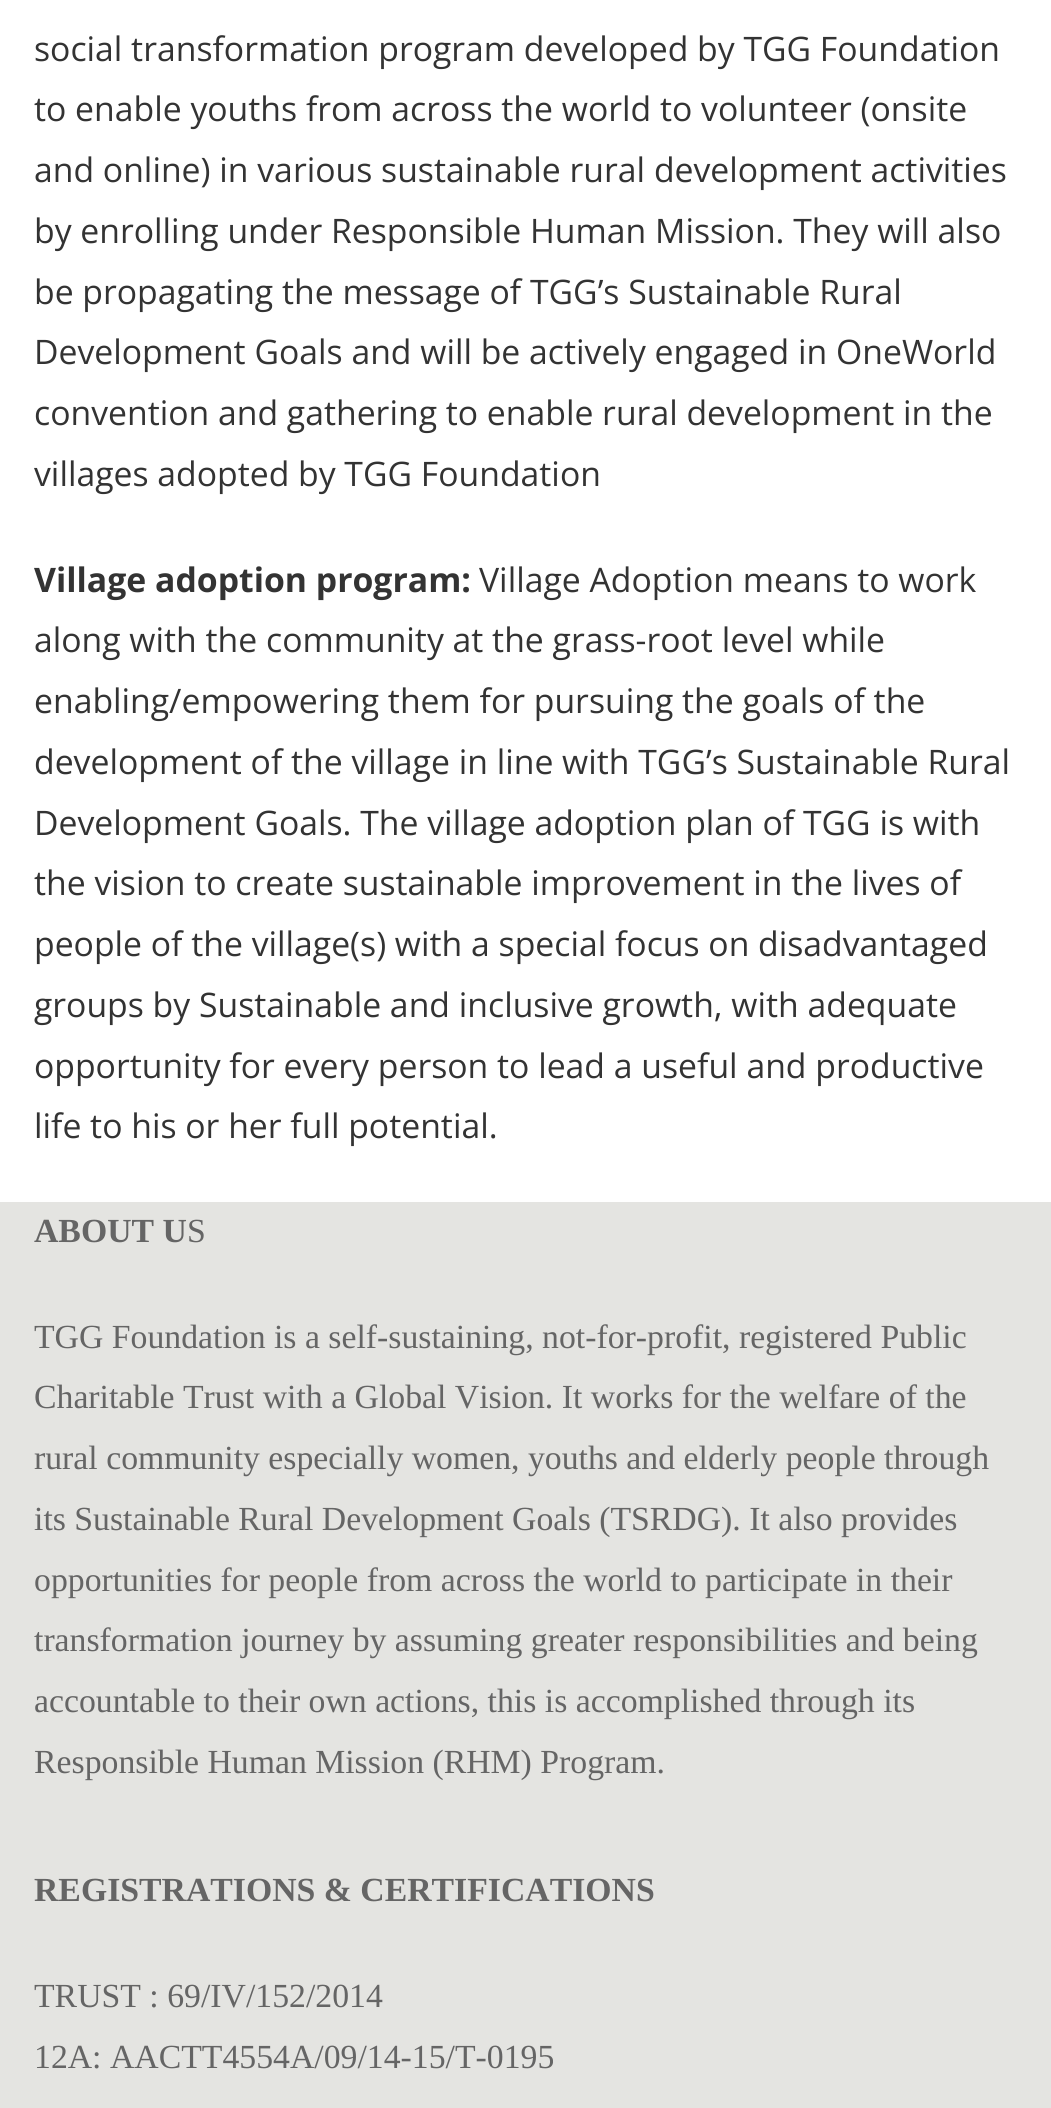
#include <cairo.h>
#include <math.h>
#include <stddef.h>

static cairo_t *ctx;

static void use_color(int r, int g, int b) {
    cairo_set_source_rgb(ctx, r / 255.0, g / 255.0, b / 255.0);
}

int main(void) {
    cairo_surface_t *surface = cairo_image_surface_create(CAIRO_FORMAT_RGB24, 1051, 2108);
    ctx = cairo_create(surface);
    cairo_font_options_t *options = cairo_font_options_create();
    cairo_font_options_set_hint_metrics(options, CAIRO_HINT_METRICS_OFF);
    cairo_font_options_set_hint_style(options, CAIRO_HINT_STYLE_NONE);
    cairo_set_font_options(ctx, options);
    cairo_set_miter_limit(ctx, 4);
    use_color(255, 255, 255);
    cairo_paint(ctx);
    cairo_select_font_face(ctx, "Open Sans", CAIRO_FONT_SLANT_NORMAL, CAIRO_FONT_WEIGHT_NORMAL);
    cairo_set_font_size(ctx, 33.75);
    use_color(51, 51, 51);
    cairo_move_to(ctx, 34, 61);
    cairo_show_text(ctx, "social transformation program developed by TGG Foundation");
    cairo_move_to(ctx, 34, 121);
    cairo_show_text(ctx, "to enable youths from across the world to volunteer (onsite");
    cairo_move_to(ctx, 34, 182);
    cairo_show_text(ctx, "and online) in various sustainable rural development activities");
    cairo_move_to(ctx, 34, 243);
    cairo_show_text(ctx, "by enrolling under Responsible Human Mission. They will also");
    cairo_move_to(ctx, 34, 304);
    cairo_show_text(ctx, "be propagating the message of TGG’s Sustainable Rural");
    cairo_move_to(ctx, 34, 364);
    cairo_show_text(ctx, "Development Goals and will be actively engaged in OneWorld");
    cairo_move_to(ctx, 34, 425);
    cairo_show_text(ctx, "convention and gathering to enable rural development in the");
    cairo_move_to(ctx, 34, 486);
    cairo_show_text(ctx, "villages adopted by TGG Foundation");
    cairo_select_font_face(ctx, "Open Sans", CAIRO_FONT_SLANT_NORMAL, CAIRO_FONT_WEIGHT_BOLD);
    cairo_move_to(ctx, 34, 592);
    cairo_show_text(ctx, "Village adoption program:");
    cairo_select_font_face(ctx, "Open Sans", CAIRO_FONT_SLANT_NORMAL, CAIRO_FONT_WEIGHT_NORMAL);
    cairo_move_to(ctx, 479, 592);
    cairo_show_text(ctx, "Village Adoption means to work");
    cairo_move_to(ctx, 34, 652);
    cairo_show_text(ctx, "along with the community at the grass-root level while");
    cairo_move_to(ctx, 34, 713);
    cairo_show_text(ctx, "enabling/empowering them for pursuing the goals of the");
    cairo_move_to(ctx, 34, 774);
    cairo_show_text(ctx, "development of the village in line with TGG’s Sustainable Rural");
    cairo_move_to(ctx, 34, 835);
    cairo_show_text(ctx, "Development Goals. The village adoption plan of TGG is with");
    cairo_move_to(ctx, 34, 895);
    cairo_show_text(ctx, "the vision to create sustainable improvement in the lives of");
    cairo_move_to(ctx, 34, 956);
    cairo_show_text(ctx, "people of the village(s) with a special focus on disadvantaged");
    cairo_move_to(ctx, 34, 1017);
    cairo_show_text(ctx, "groups by Sustainable and inclusive growth, with adequate");
    cairo_move_to(ctx, 34, 1078);
    cairo_show_text(ctx, "opportunity for every person to lead a useful and productive");
    cairo_move_to(ctx, 34, 1138);
    cairo_show_text(ctx, "life to his or her full potential.");
    use_color(228, 228, 225);
    cairo_rectangle(ctx, 0, 1202, 1051, 906);
    cairo_fill(ctx);
    cairo_select_font_face(ctx, "Liberation Serif", CAIRO_FONT_SLANT_NORMAL, CAIRO_FONT_WEIGHT_BOLD);
    use_color(101, 101, 101);
    cairo_move_to(ctx, 34, 1242);
    cairo_show_text(ctx, "ABOUT U");
    cairo_select_font_face(ctx, "Liberation Serif", CAIRO_FONT_SLANT_NORMAL, CAIRO_FONT_WEIGHT_NORMAL);
    cairo_move_to(ctx, 187, 1242);
    cairo_show_text(ctx, "S");
    cairo_move_to(ctx, 34, 1348);
    cairo_show_text(ctx, "TGG Foundation is a self-sustaining, not-for-profit, registered Public");
    cairo_move_to(ctx, 34, 1408);
    cairo_show_text(ctx, "Charitable Trust with a Global Vision. It works for the welfare of the");
    cairo_move_to(ctx, 34, 1469);
    cairo_show_text(ctx, "rural community especially women, youths and elderly people through");
    cairo_move_to(ctx, 34, 1530);
    cairo_show_text(ctx, "its Sustainable Rural Development Goals (TSRDG). It also provides");
    cairo_move_to(ctx, 34, 1591);
    cairo_show_text(ctx, "opportunities for people from across the world to participate in their");
    cairo_move_to(ctx, 34, 1651);
    cairo_show_text(ctx, "transformation journey by assuming greater responsibilities and being");
    cairo_move_to(ctx, 34, 1712);
    cairo_show_text(ctx, "accountable to their own actions, this is accomplished through its");
    cairo_move_to(ctx, 34, 1773);
    cairo_show_text(ctx, "Responsible Human Mission (RHM) Program.");
    cairo_select_font_face(ctx, "Liberation Serif", CAIRO_FONT_SLANT_NORMAL, CAIRO_FONT_WEIGHT_BOLD);
    cairo_move_to(ctx, 34, 1901);
    cairo_show_text(ctx, "REGISTRATIONS & CERTIFICATIONS");
    cairo_select_font_face(ctx, "Liberation Serif", CAIRO_FONT_SLANT_NORMAL, CAIRO_FONT_WEIGHT_NORMAL);
    cairo_move_to(ctx, 34, 2007);
    cairo_show_text(ctx, "TRUST : 69/IV/152/2014");
    cairo_move_to(ctx, 34, 2068);
    cairo_show_text(ctx, "12A: AACTT4554A/09/14-15/T-0195");
    cairo_surface_write_to_png(surface, "result.png");
    cairo_font_options_destroy(options);
    cairo_destroy(ctx);
    cairo_surface_destroy(surface);
    return 0;
}
